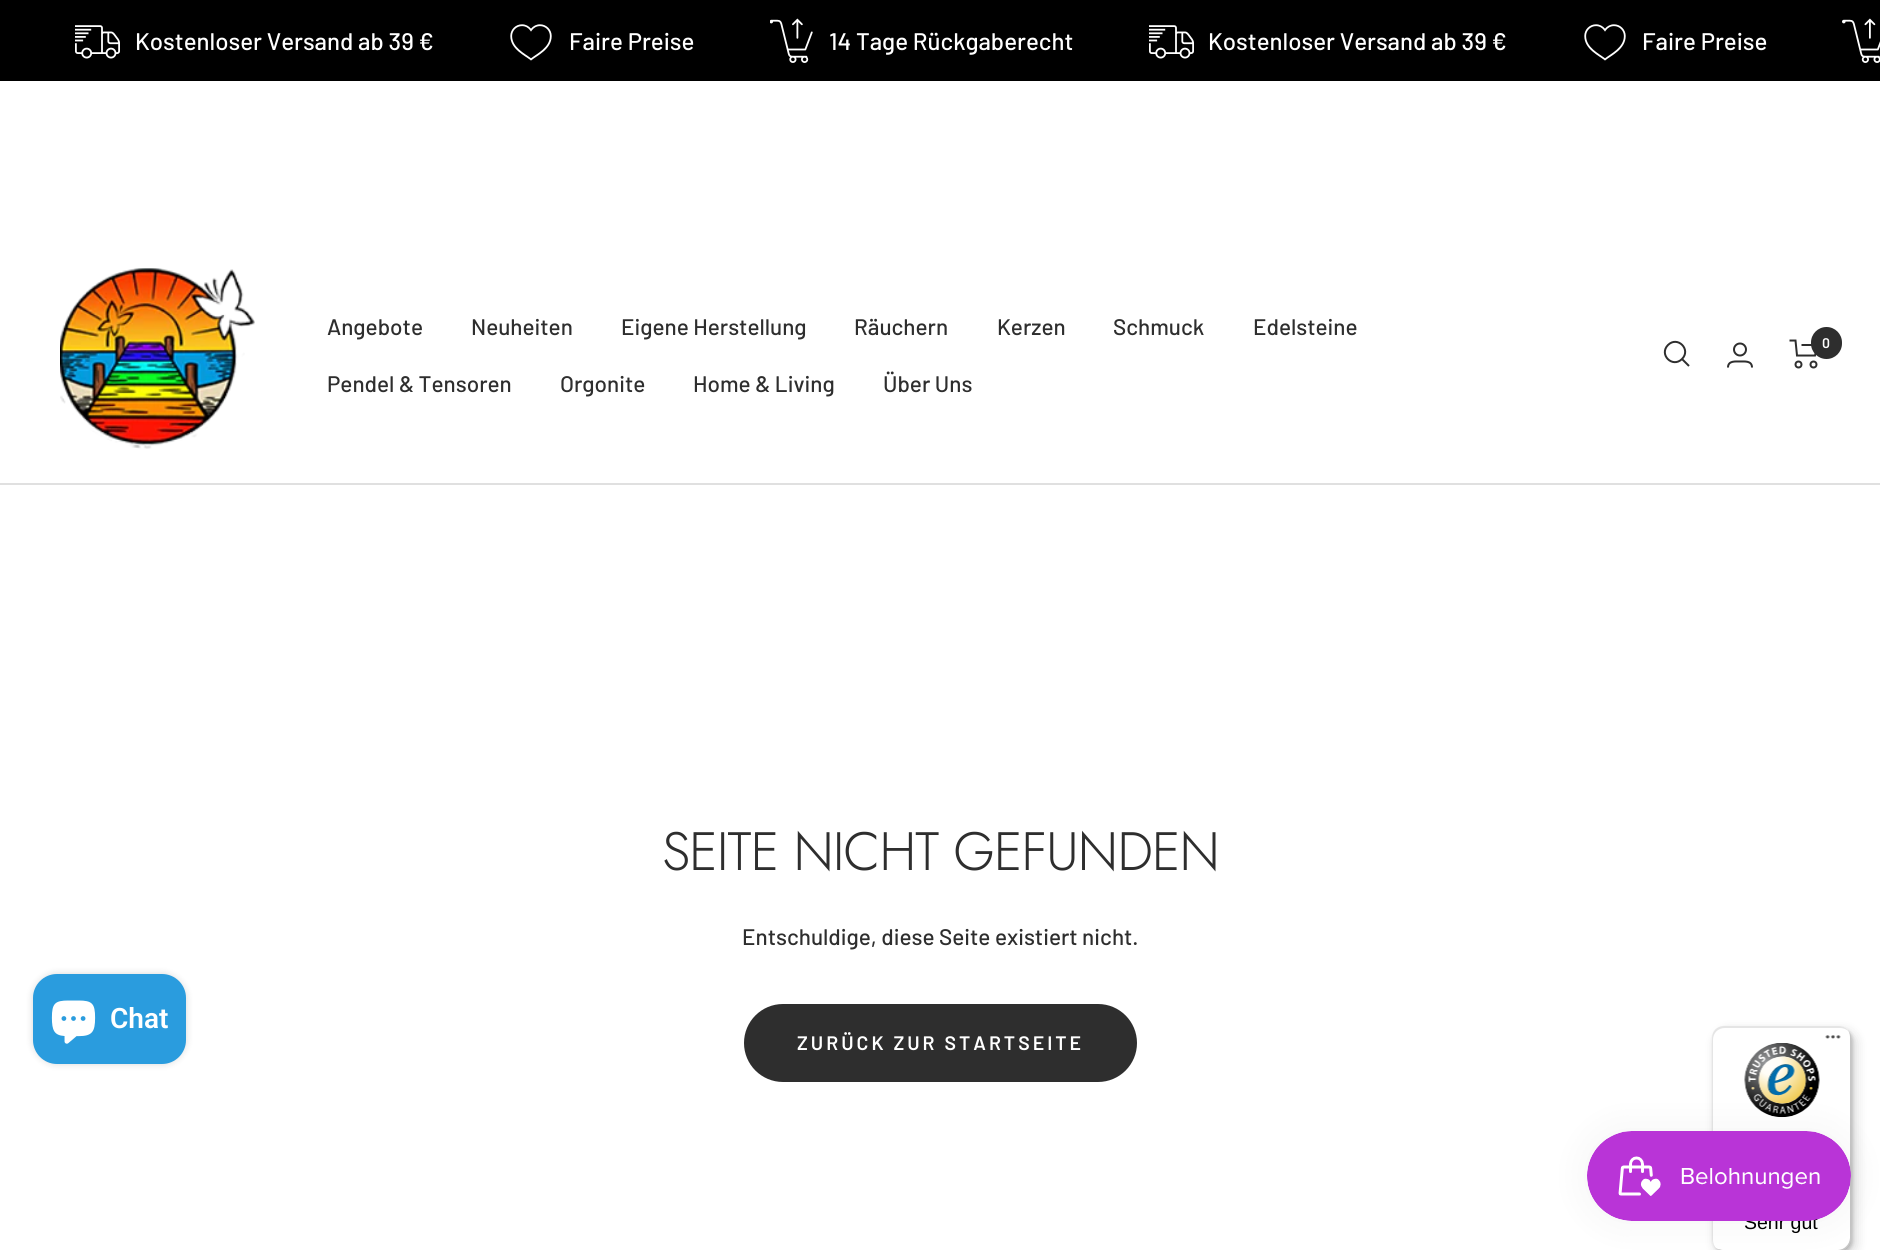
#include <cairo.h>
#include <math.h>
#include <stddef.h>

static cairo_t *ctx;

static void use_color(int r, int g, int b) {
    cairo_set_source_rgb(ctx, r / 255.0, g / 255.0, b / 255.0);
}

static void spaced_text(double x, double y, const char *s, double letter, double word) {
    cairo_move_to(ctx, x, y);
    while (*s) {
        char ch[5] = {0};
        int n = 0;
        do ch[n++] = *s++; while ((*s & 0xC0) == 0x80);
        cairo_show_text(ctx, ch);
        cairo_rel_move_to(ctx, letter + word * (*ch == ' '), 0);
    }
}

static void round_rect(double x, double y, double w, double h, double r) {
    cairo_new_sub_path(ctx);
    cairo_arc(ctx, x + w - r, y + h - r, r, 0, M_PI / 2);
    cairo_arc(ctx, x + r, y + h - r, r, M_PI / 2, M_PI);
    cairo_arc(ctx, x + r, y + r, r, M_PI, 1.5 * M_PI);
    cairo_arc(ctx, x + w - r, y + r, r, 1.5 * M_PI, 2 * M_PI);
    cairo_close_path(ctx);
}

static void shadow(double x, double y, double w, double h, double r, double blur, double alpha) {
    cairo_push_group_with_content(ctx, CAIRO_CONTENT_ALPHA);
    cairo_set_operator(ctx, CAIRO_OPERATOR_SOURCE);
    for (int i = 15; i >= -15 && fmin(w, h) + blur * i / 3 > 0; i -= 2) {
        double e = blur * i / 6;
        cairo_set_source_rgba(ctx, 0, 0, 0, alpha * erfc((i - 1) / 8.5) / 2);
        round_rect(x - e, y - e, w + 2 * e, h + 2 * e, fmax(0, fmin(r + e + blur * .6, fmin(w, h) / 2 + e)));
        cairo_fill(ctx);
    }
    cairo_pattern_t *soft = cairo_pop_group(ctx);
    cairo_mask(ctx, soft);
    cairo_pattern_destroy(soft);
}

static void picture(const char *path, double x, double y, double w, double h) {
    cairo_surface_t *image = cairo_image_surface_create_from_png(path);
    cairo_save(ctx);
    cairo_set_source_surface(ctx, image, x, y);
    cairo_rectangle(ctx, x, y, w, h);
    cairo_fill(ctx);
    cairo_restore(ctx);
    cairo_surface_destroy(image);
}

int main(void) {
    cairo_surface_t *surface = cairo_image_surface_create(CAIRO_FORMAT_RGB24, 1880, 1250);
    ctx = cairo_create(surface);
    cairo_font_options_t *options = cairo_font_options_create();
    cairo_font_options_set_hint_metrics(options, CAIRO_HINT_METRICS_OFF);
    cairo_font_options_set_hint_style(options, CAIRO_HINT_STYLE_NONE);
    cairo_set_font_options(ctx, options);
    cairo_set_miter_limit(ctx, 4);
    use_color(255, 255, 255);
    cairo_paint(ctx);
    use_color(0, 0, 0);
    cairo_rectangle(ctx, 0, 0, 1880, 81);
    cairo_fill(ctx);
    picture("img1.png", 75, 25, 45, 34);
    cairo_select_font_face(ctx, "Barlow Medium", CAIRO_FONT_SLANT_NORMAL, CAIRO_FONT_WEIGHT_NORMAL);
    cairo_set_font_size(ctx, 24);
    use_color(255, 255, 255);
    cairo_move_to(ctx, 135, 50);
    cairo_show_text(ctx, "Kostenloser Versand ab 39 €");
    picture("img2.png", 510, 24, 42, 37);
    cairo_move_to(ctx, 569, 50);
    cairo_show_text(ctx, "Faire Preise");
    picture("img3.png", 770, 18, 43, 45);
    cairo_move_to(ctx, 829, 50);
    cairo_show_text(ctx, "14 Tage Rückgaberecht");
    picture("img1.png", 1149, 25, 45, 34);
    cairo_move_to(ctx, 1208, 50);
    cairo_show_text(ctx, "Kostenloser Versand ab 39 €");
    picture("img2.png", 1584, 24, 42, 37);
    cairo_move_to(ctx, 1642, 50);
    cairo_show_text(ctx, "Faire Preise");
    picture("img4.png", 1842, 18, 38, 45);
    use_color(224, 224, 224);
    cairo_rectangle(ctx, 0, 483, 1880, 2);
    cairo_fill(ctx);
    picture("img5.png", 60, 268, 195, 181);
    cairo_set_font_size(ctx, 22.5);
    use_color(46, 46, 46);
    cairo_move_to(ctx, 327, 335);
    cairo_show_text(ctx, "Angebote");
    cairo_move_to(ctx, 471, 335);
    cairo_show_text(ctx, "Neuheiten");
    cairo_move_to(ctx, 621, 335);
    cairo_show_text(ctx, "Eigene Herstellung");
    cairo_move_to(ctx, 854, 335);
    cairo_show_text(ctx, "Räuchern");
    cairo_move_to(ctx, 997, 335);
    cairo_show_text(ctx, "Kerzen");
    cairo_move_to(ctx, 1113, 335);
    cairo_show_text(ctx, "Schmuck");
    cairo_move_to(ctx, 1253, 335);
    cairo_show_text(ctx, "Edelsteine");
    cairo_move_to(ctx, 327, 392);
    cairo_show_text(ctx, "Pendel & Tensoren");
    cairo_move_to(ctx, 560, 392);
    cairo_show_text(ctx, "Orgonite");
    cairo_move_to(ctx, 693, 392);
    cairo_show_text(ctx, "Home & Living");
    cairo_move_to(ctx, 883, 392);
    cairo_show_text(ctx, "Über Uns");
    cairo_new_path(ctx);
    cairo_move_to(ctx, 1682, 359);
    cairo_curve_to(ctx, 1691.5, 349.5, 1677.5, 335.5, 1668, 345);
    cairo_curve_to(ctx, 1658.5, 354.5, 1672.5, 368.5, 1682, 359);
    cairo_close_path(ctx);
    cairo_move_to(ctx, 1682, 359);
    cairo_line_to(ctx, 1689, 366);
    cairo_stroke(ctx);
    cairo_arc(ctx, 1740, 349.5, 6, 0, 2 * M_PI);
    cairo_stroke(ctx);
    cairo_new_path(ctx);
    cairo_move_to(ctx, 1728, 367.5);
    cairo_curve_to(ctx, 1728, 360.5, 1735.5, 361.5, 1740, 361.5);
    cairo_curve_to(ctx, 1744.5, 361.5, 1752, 360.5, 1752, 367.5);
    cairo_stroke(ctx);
    cairo_new_path(ctx);
    cairo_move_to(ctx, 1789.5, 340.5);
    cairo_line_to(ctx, 1795.5, 340.5);
    cairo_line_to(ctx, 1797, 355.5);
    cairo_line_to(ctx, 1815, 355.5);
    cairo_line_to(ctx, 1818, 345);
    cairo_line_to(ctx, 1801.5, 345);
    cairo_stroke(ctx);
    cairo_arc(ctx, 1798.5, 364.5, 3, 0, 2 * M_PI);
    cairo_stroke(ctx);
    cairo_arc(ctx, 1813.5, 364.5, 3, 0, 2 * M_PI);
    cairo_stroke(ctx);
    round_rect(1811, 327, 31, 32, 15.5);
    cairo_fill(ctx);
    cairo_select_font_face(ctx, "Barlow SemiBold", CAIRO_FONT_SLANT_NORMAL, CAIRO_FONT_WEIGHT_NORMAL);
    cairo_set_font_size(ctx, 14);
    use_color(255, 255, 255);
    cairo_move_to(ctx, 1822, 348);
    cairo_show_text(ctx, "0");
    use_color(0, 0, 0);
    shadow(33, 974, 153, 90, 24, 4, 0.15);
    use_color(42, 156, 222);
    round_rect(33, 974, 153, 90, 24);
    cairo_fill(ctx);
    picture("img6.png", 51, 1000, 45, 44);
    cairo_select_font_face(ctx, "Roboto SemiBold", CAIRO_FONT_SLANT_NORMAL, CAIRO_FONT_WEIGHT_NORMAL);
    cairo_set_font_size(ctx, 28);
    use_color(255, 255, 255);
    cairo_move_to(ctx, 110, 1028);
    cairo_show_text(ctx, "Chat");
    cairo_select_font_face(ctx, "Jost Light", CAIRO_FONT_SLANT_NORMAL, CAIRO_FONT_WEIGHT_NORMAL);
    cairo_set_font_size(ctx, 54);
    use_color(46, 46, 46);
    spaced_text(662, 870, "SEITE NICHT GEFUNDEN", -1.2, 0);
    cairo_select_font_face(ctx, "Barlow Medium", CAIRO_FONT_SLANT_NORMAL, CAIRO_FONT_WEIGHT_NORMAL);
    cairo_set_font_size(ctx, 22.5);
    cairo_move_to(ctx, 742, 945);
    cairo_show_text(ctx, "Entschuldige, diese Seite existiert nicht.");
    round_rect(744, 1004, 393, 78, 39);
    cairo_fill(ctx);
    cairo_select_font_face(ctx, "Barlow SemiBold", CAIRO_FONT_SLANT_NORMAL, CAIRO_FONT_WEIGHT_NORMAL);
    cairo_set_font_size(ctx, 19.5);
    use_color(255, 255, 255);
    spaced_text(797, 1050, "ZURÜCK ZUR STARTSEITE", 3, 0);
    use_color(0, 0, 0);
    shadow(1716, 1031, 140, 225, 12, 6, 0.15);
    shadow(1713, 1028, 140, 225, 12, 1.5, 0.15);
    use_color(255, 255, 255);
    round_rect(1712, 1026, 139, 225, 12);
    cairo_fill(ctx);
    use_color(229, 229, 229);
    cairo_new_path(ctx);
    cairo_move_to(ctx, 1725, 1028);
    cairo_line_to(ctx, 1840, 1028);
    cairo_curve_to(ctx, 1844, 1028, 1848, 1030, 1850, 1033);
    cairo_curve_to(ctx, 1848, 1029, 1844, 1026, 1839, 1026);
    cairo_line_to(ctx, 1724, 1026);
    cairo_curve_to(ctx, 1717, 1026, 1712, 1031, 1712, 1038);
    cairo_line_to(ctx, 1712, 1239);
    cairo_curve_to(ctx, 1712, 1242, 1713, 1245, 1715, 1247);
    cairo_curve_to(ctx, 1714, 1245, 1713, 1243, 1713, 1240);
    cairo_line_to(ctx, 1713, 1040);
    cairo_curve_to(ctx, 1713, 1033, 1718, 1028, 1725, 1028);
    cairo_close_path(ctx);
    cairo_fill(ctx);
    cairo_set_source_rgba(ctx, 0, 0, 0, 0.2);
    cairo_new_path(ctx);
    cairo_move_to(ctx, 1718, 1249);
    cairo_curve_to(ctx, 1719, 1250, 1722, 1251, 1724, 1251);
    cairo_line_to(ctx, 1839, 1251);
    cairo_curve_to(ctx, 1846, 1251, 1851, 1246, 1851, 1239);
    cairo_line_to(ctx, 1851, 1038);
    cairo_curve_to(ctx, 1851, 1035, 1850, 1033, 1848, 1031);
    cairo_curve_to(ctx, 1849, 1032, 1850, 1034, 1850, 1036);
    cairo_line_to(ctx, 1850, 1238);
    cairo_curve_to(ctx, 1850, 1244, 1844, 1250, 1838, 1250);
    cairo_line_to(ctx, 1722, 1250);
    cairo_close_path(ctx);
    cairo_fill(ctx);
    cairo_set_source_rgba(ctx, 0.196, 0.196, 0.196, 0.2);
    cairo_new_path(ctx);
    cairo_move_to(ctx, 1716, 1248);
    cairo_curve_to(ctx, 1718, 1250, 1721, 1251, 1724, 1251);
    cairo_line_to(ctx, 1839, 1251);
    cairo_curve_to(ctx, 1846, 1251, 1851, 1246, 1851, 1239);
    cairo_line_to(ctx, 1851, 1038);
    cairo_curve_to(ctx, 1851, 1035, 1850, 1032, 1848, 1030);
    cairo_curve_to(ctx, 1849, 1032, 1850, 1034, 1850, 1037);
    cairo_line_to(ctx, 1850, 1238);
    cairo_curve_to(ctx, 1850, 1245, 1845, 1250, 1838, 1250);
    cairo_line_to(ctx, 1723, 1250);
    cairo_curve_to(ctx, 1720, 1250, 1718, 1249, 1716, 1248);
    cairo_close_path(ctx);
    cairo_fill(ctx);
    cairo_set_source_rgba(ctx, 1, 1, 1, 0.3);
    cairo_new_path(ctx);
    cairo_move_to(ctx, 1716, 1248);
    cairo_curve_to(ctx, 1718, 1250, 1721, 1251, 1724, 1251);
    cairo_line_to(ctx, 1839, 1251);
    cairo_curve_to(ctx, 1846, 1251, 1851, 1246, 1851, 1239);
    cairo_line_to(ctx, 1851, 1038);
    cairo_curve_to(ctx, 1851, 1034, 1849, 1031, 1847, 1029);
    cairo_curve_to(ctx, 1849, 1031, 1850, 1034, 1850, 1037);
    cairo_line_to(ctx, 1850, 1238);
    cairo_curve_to(ctx, 1850, 1245, 1845, 1250, 1838, 1250);
    cairo_line_to(ctx, 1723, 1250);
    cairo_curve_to(ctx, 1720, 1250, 1718, 1249, 1716, 1248);
    cairo_close_path(ctx);
    cairo_fill(ctx);
    picture("img9.png", 1744, 1043, 76, 75);
    use_color(0, 0, 0);
    shadow(1587, 1131, 264, 90, 45, 19, 0.05);
    cairo_select_font_face(ctx, "Liberation Sans", CAIRO_FONT_SLANT_NORMAL, CAIRO_FONT_WEIGHT_NORMAL);
    use_color(0, 0, 0);
    cairo_move_to(ctx, 1744, 1229);
    cairo_show_text(ctx, "Sehr gut");
    picture("img7.png", 1587, 1131, 264, 90);
    picture("img8.png", 1825, 1035, 16, 4);
    cairo_surface_write_to_png(surface, "result.png");
    cairo_font_options_destroy(options);
    cairo_destroy(ctx);
    cairo_surface_destroy(surface);
    return 0;
}
